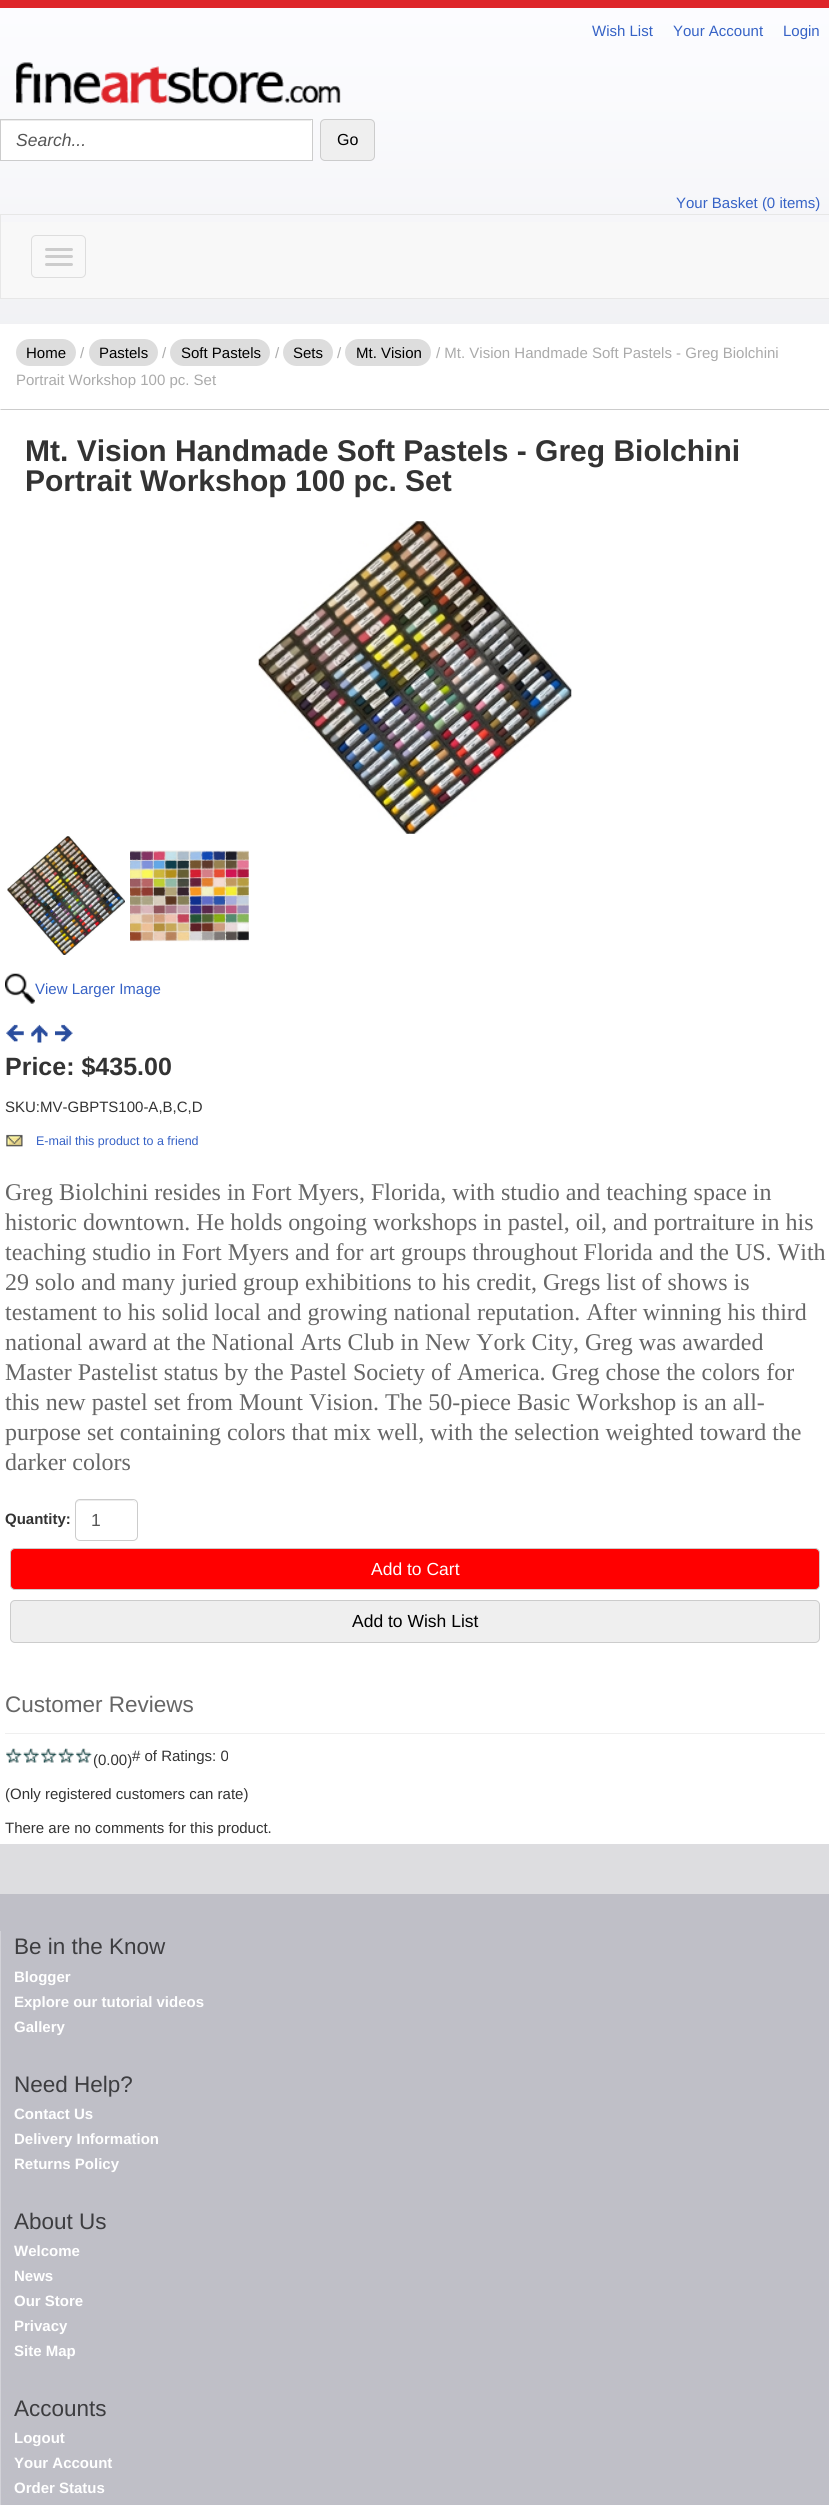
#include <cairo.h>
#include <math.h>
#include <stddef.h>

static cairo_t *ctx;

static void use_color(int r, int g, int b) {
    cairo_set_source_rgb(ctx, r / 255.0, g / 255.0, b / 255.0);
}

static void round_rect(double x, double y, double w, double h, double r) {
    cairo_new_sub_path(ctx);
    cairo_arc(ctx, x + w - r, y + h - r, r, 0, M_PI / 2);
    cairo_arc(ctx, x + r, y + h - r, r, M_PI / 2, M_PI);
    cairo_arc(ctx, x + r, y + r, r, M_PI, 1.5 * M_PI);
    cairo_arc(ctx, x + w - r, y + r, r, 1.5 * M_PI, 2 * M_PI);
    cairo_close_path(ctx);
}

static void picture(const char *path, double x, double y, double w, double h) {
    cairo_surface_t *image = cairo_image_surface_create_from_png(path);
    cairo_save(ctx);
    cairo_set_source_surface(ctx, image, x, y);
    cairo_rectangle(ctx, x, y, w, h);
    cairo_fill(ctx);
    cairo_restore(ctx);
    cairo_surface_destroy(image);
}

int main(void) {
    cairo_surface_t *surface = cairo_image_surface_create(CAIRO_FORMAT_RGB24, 829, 2505);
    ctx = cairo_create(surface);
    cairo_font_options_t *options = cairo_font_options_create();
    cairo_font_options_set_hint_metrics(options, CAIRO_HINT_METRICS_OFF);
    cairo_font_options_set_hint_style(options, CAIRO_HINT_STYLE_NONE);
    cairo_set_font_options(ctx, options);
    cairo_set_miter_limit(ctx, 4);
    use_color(221, 221, 224);
    cairo_paint(ctx);
    picture("img1.png", 0, 8, 829, 316);
    use_color(222, 37, 42);
    cairo_rectangle(ctx, 0, 0, 829, 8);
    cairo_fill(ctx);
    cairo_select_font_face(ctx, "Liberation Sans", CAIRO_FONT_SLANT_NORMAL, CAIRO_FONT_WEIGHT_NORMAL);
    cairo_set_font_size(ctx, 15);
    use_color(54, 98, 198);
    cairo_move_to(ctx, 592, 36);
    cairo_show_text(ctx, "Wish List");
    cairo_move_to(ctx, 673, 36);
    cairo_show_text(ctx, "Your Account");
    cairo_move_to(ctx, 783, 36);
    cairo_show_text(ctx, "Login");
    picture("img2.png", 16, 62, 325, 42);
    use_color(255, 255, 255);
    cairo_rectangle(ctx, 1, 120, 311, 40);
    cairo_fill(ctx);
    use_color(236, 236, 236);
    cairo_rectangle(ctx, 1, 120, 310, 1);
    cairo_fill(ctx);
    cairo_rectangle(ctx, 0.5, 119.5, 312, 41);
    use_color(204, 204, 204);
    cairo_set_line_width(ctx, 1);
    cairo_stroke(ctx);
    cairo_select_font_face(ctx, "Liberation Sans", CAIRO_FONT_SLANT_ITALIC, CAIRO_FONT_WEIGHT_NORMAL);
    cairo_set_font_size(ctx, 17.5);
    use_color(85, 85, 85);
    cairo_move_to(ctx, 16, 146);
    cairo_show_text(ctx, "Search...");
    use_color(239, 239, 239);
    round_rect(320.5, 119.5, 54, 41, 4.5);
    cairo_fill_preserve(ctx);
    use_color(204, 204, 204);
    cairo_stroke(ctx);
    cairo_select_font_face(ctx, "Liberation Sans", CAIRO_FONT_SLANT_NORMAL, CAIRO_FONT_WEIGHT_NORMAL);
    cairo_set_font_size(ctx, 16);
    use_color(0, 0, 0);
    cairo_move_to(ctx, 337, 145);
    cairo_show_text(ctx, "Go");
    cairo_set_font_size(ctx, 15);
    use_color(54, 98, 198);
    cairo_move_to(ctx, 676, 208);
    cairo_show_text(ctx, "Your Basket (0 items)");
    use_color(248, 248, 248);
    cairo_rectangle(ctx, 1, 222, 828, 76);
    cairo_fill(ctx);
    cairo_rectangle(ctx, 0.5, 214.5, 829, 84);
    use_color(231, 231, 231);
    cairo_stroke(ctx);
    round_rect(31.5, 235.5, 54, 42, 4.5);
    use_color(221, 221, 221);
    cairo_stroke(ctx);
    use_color(204, 204, 204);
    round_rect(45, 248, 28, 3, 1.5);
    cairo_fill(ctx);
    round_rect(45, 255, 28, 3, 1.5);
    cairo_fill(ctx);
    round_rect(45, 263, 28, 3, 1.5);
    cairo_fill(ctx);
    use_color(255, 255, 255);
    cairo_rectangle(ctx, 0, 324, 829, 1520);
    cairo_fill(ctx);
    use_color(204, 204, 204);
    cairo_new_path(ctx);
    cairo_move_to(ctx, 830, 410);
    cairo_line_to(ctx, 0, 410);
    cairo_line_to(ctx, 1, 409);
    cairo_line_to(ctx, 829, 409);
    cairo_close_path(ctx);
    cairo_fill(ctx);
    use_color(221, 221, 221);
    round_rect(16, 339, 60, 27, 13.5);
    cairo_fill(ctx);
    use_color(0, 0, 0);
    cairo_move_to(ctx, 26, 358);
    cairo_show_text(ctx, "Home");
    use_color(170, 170, 170);
    cairo_move_to(ctx, 80, 358);
    cairo_show_text(ctx, "/");
    use_color(221, 221, 221);
    round_rect(89, 339, 69, 27, 13.5);
    cairo_fill(ctx);
    use_color(0, 0, 0);
    cairo_move_to(ctx, 99, 358);
    cairo_show_text(ctx, "Pastels");
    use_color(170, 170, 170);
    cairo_move_to(ctx, 162, 358);
    cairo_show_text(ctx, "/");
    use_color(221, 221, 221);
    round_rect(170, 339, 100, 27, 13.5);
    cairo_fill(ctx);
    use_color(0, 0, 0);
    cairo_move_to(ctx, 181, 358);
    cairo_show_text(ctx, "Soft Pastels");
    use_color(170, 170, 170);
    cairo_move_to(ctx, 275, 358);
    cairo_show_text(ctx, "/");
    use_color(221, 221, 221);
    round_rect(283, 339, 50, 27, 13.5);
    cairo_fill(ctx);
    use_color(0, 0, 0);
    cairo_move_to(ctx, 293, 358);
    cairo_show_text(ctx, "Sets");
    use_color(170, 170, 170);
    cairo_move_to(ctx, 337, 358);
    cairo_show_text(ctx, "/");
    use_color(221, 221, 221);
    round_rect(345, 339, 86, 27, 13.5);
    cairo_fill(ctx);
    use_color(0, 0, 0);
    cairo_move_to(ctx, 356, 358);
    cairo_show_text(ctx, "Mt. Vision");
    use_color(170, 170, 170);
    cairo_move_to(ctx, 436, 358);
    cairo_show_text(ctx, "/ Mt. Vision Handmade Soft Pastels - Greg Biolchini");
    cairo_move_to(ctx, 16, 385);
    cairo_show_text(ctx, "Portrait Workshop 100 pc. Set");
    cairo_select_font_face(ctx, "Liberation Sans", CAIRO_FONT_SLANT_NORMAL, CAIRO_FONT_WEIGHT_BOLD);
    cairo_set_font_size(ctx, 30);
    use_color(51, 51, 51);
    cairo_move_to(ctx, 25, 461);
    cairo_show_text(ctx, "Mt. Vision Handmade Soft Pastels - Greg Biolchini");
    cairo_move_to(ctx, 25, 491);
    cairo_show_text(ctx, "Portrait Workshop 100 pc. Set");
    picture("img3.png", 258, 521, 314, 313);
    picture("img4.png", 7, 836, 118, 119);
    picture("img5.png", 130, 850, 119, 92);
    picture("img6.png", 5, 973, 30, 31);
    cairo_select_font_face(ctx, "Liberation Sans", CAIRO_FONT_SLANT_NORMAL, CAIRO_FONT_WEIGHT_NORMAL);
    cairo_set_font_size(ctx, 15);
    use_color(54, 98, 198);
    cairo_move_to(ctx, 35, 994);
    cairo_show_text(ctx, "View Larger Image");
    picture("img7.png", 6, 1024, 18, 18);
    picture("img8.png", 31, 1024, 17, 19);
    picture("img9.png", 55, 1024, 18, 18);
    cairo_select_font_face(ctx, "Liberation Sans", CAIRO_FONT_SLANT_NORMAL, CAIRO_FONT_WEIGHT_BOLD);
    cairo_set_font_size(ctx, 25);
    use_color(51, 51, 51);
    cairo_move_to(ctx, 5, 1075);
    cairo_show_text(ctx, "Price: $435.00");
    cairo_select_font_face(ctx, "Liberation Sans", CAIRO_FONT_SLANT_NORMAL, CAIRO_FONT_WEIGHT_NORMAL);
    cairo_set_font_size(ctx, 15);
    cairo_move_to(ctx, 5, 1112);
    cairo_show_text(ctx, "SKU:MV-GBPTS100-A,B,C,D");
    picture("img10.png", 6, 1134, 17, 13);
    cairo_set_font_size(ctx, 12.5);
    use_color(54, 98, 198);
    cairo_move_to(ctx, 36, 1145);
    cairo_show_text(ctx, "E-mail this product to a friend");
    cairo_select_font_face(ctx, "Liberation Serif", CAIRO_FONT_SLANT_NORMAL, CAIRO_FONT_WEIGHT_NORMAL);
    cairo_set_font_size(ctx, 24);
    use_color(102, 102, 102);
    cairo_move_to(ctx, 5, 1200);
    cairo_show_text(ctx, "Greg Biolchini resides in Fort Myers, Florida, with studio and teaching space in");
    cairo_move_to(ctx, 5, 1230);
    cairo_show_text(ctx, "historic downtown. He holds ongoing workshops in pastel, oil, and portraiture in his");
    cairo_move_to(ctx, 5, 1260);
    cairo_show_text(ctx, "teaching studio in Fort Myers and for art groups throughout Florida and the US. With");
    cairo_move_to(ctx, 5, 1290);
    cairo_show_text(ctx, "29 solo and many juried group exhibitions to his credit, Gregs list of shows is");
    cairo_move_to(ctx, 5, 1320);
    cairo_show_text(ctx, "testament to his solid local and growing national reputation. After winning his third");
    cairo_move_to(ctx, 5, 1350);
    cairo_show_text(ctx, "national award at the National Arts Club in New York City, Greg was awarded");
    cairo_move_to(ctx, 5, 1380);
    cairo_show_text(ctx, "Master Pastelist status by the Pastel Society of America. Greg chose the colors for");
    cairo_move_to(ctx, 5, 1410);
    cairo_show_text(ctx, "this new pastel set from Mount Vision. The 50-piece Basic Workshop is an all-");
    cairo_move_to(ctx, 5, 1440);
    cairo_show_text(ctx, "purpose set containing colors that mix well, with the selection weighted toward the");
    cairo_move_to(ctx, 5, 1470);
    cairo_show_text(ctx, "darker colors");
    cairo_select_font_face(ctx, "Liberation Sans", CAIRO_FONT_SLANT_NORMAL, CAIRO_FONT_WEIGHT_BOLD);
    cairo_set_font_size(ctx, 15);
    use_color(51, 51, 51);
    cairo_move_to(ctx, 5, 1524);
    cairo_show_text(ctx, "Quantity:");
    use_color(236, 236, 236);
    cairo_new_path(ctx);
    cairo_move_to(ctx, 80, 1501);
    cairo_line_to(ctx, 132, 1501);
    cairo_curve_to(ctx, 135, 1501, 136, 1503, 136, 1505);
    cairo_curve_to(ctx, 136, 1498, 128, 1500, 123, 1500);
    cairo_line_to(ctx, 89, 1500);
    cairo_curve_to(ctx, 84, 1500, 76, 1498, 76, 1505);
    cairo_curve_to(ctx, 76, 1503, 78, 1501, 80, 1501);
    cairo_close_path(ctx);
    cairo_fill(ctx);
    round_rect(75.5, 1499.5, 62, 41, 4.5);
    use_color(204, 204, 204);
    cairo_stroke(ctx);
    cairo_select_font_face(ctx, "Liberation Sans", CAIRO_FONT_SLANT_NORMAL, CAIRO_FONT_WEIGHT_NORMAL);
    cairo_set_font_size(ctx, 17.5);
    use_color(85, 85, 85);
    cairo_move_to(ctx, 91, 1526);
    cairo_show_text(ctx, "1");
    use_color(255, 0, 0);
    round_rect(10.5, 1548.5, 809, 41, 4.5);
    cairo_fill_preserve(ctx);
    use_color(204, 204, 204);
    cairo_stroke(ctx);
    use_color(255, 255, 255);
    cairo_move_to(ctx, 371, 1575);
    cairo_show_text(ctx, "Add to Cart");
    use_color(239, 239, 239);
    round_rect(10.5, 1600.5, 809, 42, 4.5);
    cairo_fill_preserve(ctx);
    use_color(204, 204, 204);
    cairo_stroke(ctx);
    use_color(0, 0, 0);
    cairo_move_to(ctx, 352, 1627);
    cairo_show_text(ctx, "Add to Wish List");
    use_color(239, 239, 239);
    cairo_rectangle(ctx, 5, 1733, 820, 1);
    cairo_fill(ctx);
    cairo_set_font_size(ctx, 22.5);
    use_color(102, 102, 102);
    cairo_move_to(ctx, 5, 1712);
    cairo_show_text(ctx, "Customer Reviews");
    picture("img11.png", 6, 1748, 16, 15);
    picture("img12.png", 23, 1748, 16, 15);
    picture("img11.png", 41, 1748, 16, 15);
    picture("img13.png", 58, 1748, 16, 15);
    picture("img11.png", 76, 1748, 16, 15);
    cairo_set_font_size(ctx, 15);
    use_color(51, 51, 51);
    cairo_move_to(ctx, 93, 1765);
    cairo_show_text(ctx, "(0.00)");
    cairo_move_to(ctx, 132, 1761);
    cairo_show_text(ctx, "# of Ratings: 0");
    cairo_move_to(ctx, 5, 1799);
    cairo_show_text(ctx, "(Only registered customers can rate)");
    cairo_move_to(ctx, 5, 1833);
    cairo_show_text(ctx, "There are no comments for this product.");
    use_color(191, 191, 199);
    cairo_rectangle(ctx, 0, 1894, 829, 611);
    cairo_fill(ctx);
    use_color(210, 210, 216);
    cairo_rectangle(ctx, 0, 1931, 1, 574);
    cairo_fill(ctx);
    cairo_set_font_size(ctx, 22.5);
    use_color(61, 61, 64);
    cairo_move_to(ctx, 14, 1954);
    cairo_show_text(ctx, "Be in the Know");
    cairo_select_font_face(ctx, "Liberation Sans", CAIRO_FONT_SLANT_NORMAL, CAIRO_FONT_WEIGHT_BOLD);
    cairo_set_font_size(ctx, 15);
    use_color(255, 255, 255);
    cairo_move_to(ctx, 14, 1982);
    cairo_show_text(ctx, "Blogger");
    cairo_move_to(ctx, 14, 2007);
    cairo_show_text(ctx, "Explore our tutorial videos");
    cairo_move_to(ctx, 14, 2032);
    cairo_show_text(ctx, "Gallery");
    cairo_select_font_face(ctx, "Liberation Sans", CAIRO_FONT_SLANT_NORMAL, CAIRO_FONT_WEIGHT_NORMAL);
    cairo_set_font_size(ctx, 22.5);
    use_color(61, 61, 64);
    cairo_move_to(ctx, 14, 2092);
    cairo_show_text(ctx, "Need Help?");
    cairo_select_font_face(ctx, "Liberation Sans", CAIRO_FONT_SLANT_NORMAL, CAIRO_FONT_WEIGHT_BOLD);
    cairo_set_font_size(ctx, 15);
    use_color(255, 255, 255);
    cairo_move_to(ctx, 14, 2119);
    cairo_show_text(ctx, "Contact Us");
    cairo_move_to(ctx, 14, 2144);
    cairo_show_text(ctx, "Delivery Information");
    cairo_move_to(ctx, 14, 2169);
    cairo_show_text(ctx, "Returns Policy");
    cairo_select_font_face(ctx, "Liberation Sans", CAIRO_FONT_SLANT_NORMAL, CAIRO_FONT_WEIGHT_NORMAL);
    cairo_set_font_size(ctx, 22.5);
    use_color(61, 61, 64);
    cairo_move_to(ctx, 14, 2229);
    cairo_show_text(ctx, "About Us");
    cairo_select_font_face(ctx, "Liberation Sans", CAIRO_FONT_SLANT_NORMAL, CAIRO_FONT_WEIGHT_BOLD);
    cairo_set_font_size(ctx, 15);
    use_color(255, 255, 255);
    cairo_move_to(ctx, 14, 2256);
    cairo_show_text(ctx, "Welcome");
    cairo_move_to(ctx, 14, 2281);
    cairo_show_text(ctx, "News");
    cairo_move_to(ctx, 14, 2306);
    cairo_show_text(ctx, "Our Store");
    cairo_move_to(ctx, 14, 2331);
    cairo_show_text(ctx, "Privacy");
    cairo_move_to(ctx, 14, 2356);
    cairo_show_text(ctx, "Site Map");
    cairo_select_font_face(ctx, "Liberation Sans", CAIRO_FONT_SLANT_NORMAL, CAIRO_FONT_WEIGHT_NORMAL);
    cairo_set_font_size(ctx, 22.5);
    use_color(61, 61, 64);
    cairo_move_to(ctx, 14, 2416);
    cairo_show_text(ctx, "Accounts");
    cairo_select_font_face(ctx, "Liberation Sans", CAIRO_FONT_SLANT_NORMAL, CAIRO_FONT_WEIGHT_BOLD);
    cairo_set_font_size(ctx, 15);
    use_color(255, 255, 255);
    cairo_move_to(ctx, 14, 2443);
    cairo_show_text(ctx, "Logout");
    cairo_move_to(ctx, 14, 2468);
    cairo_show_text(ctx, "Your Account");
    cairo_move_to(ctx, 14, 2493);
    cairo_show_text(ctx, "Order Status");
    cairo_surface_write_to_png(surface, "result.png");
    cairo_font_options_destroy(options);
    cairo_destroy(ctx);
    cairo_surface_destroy(surface);
    return 0;
}
